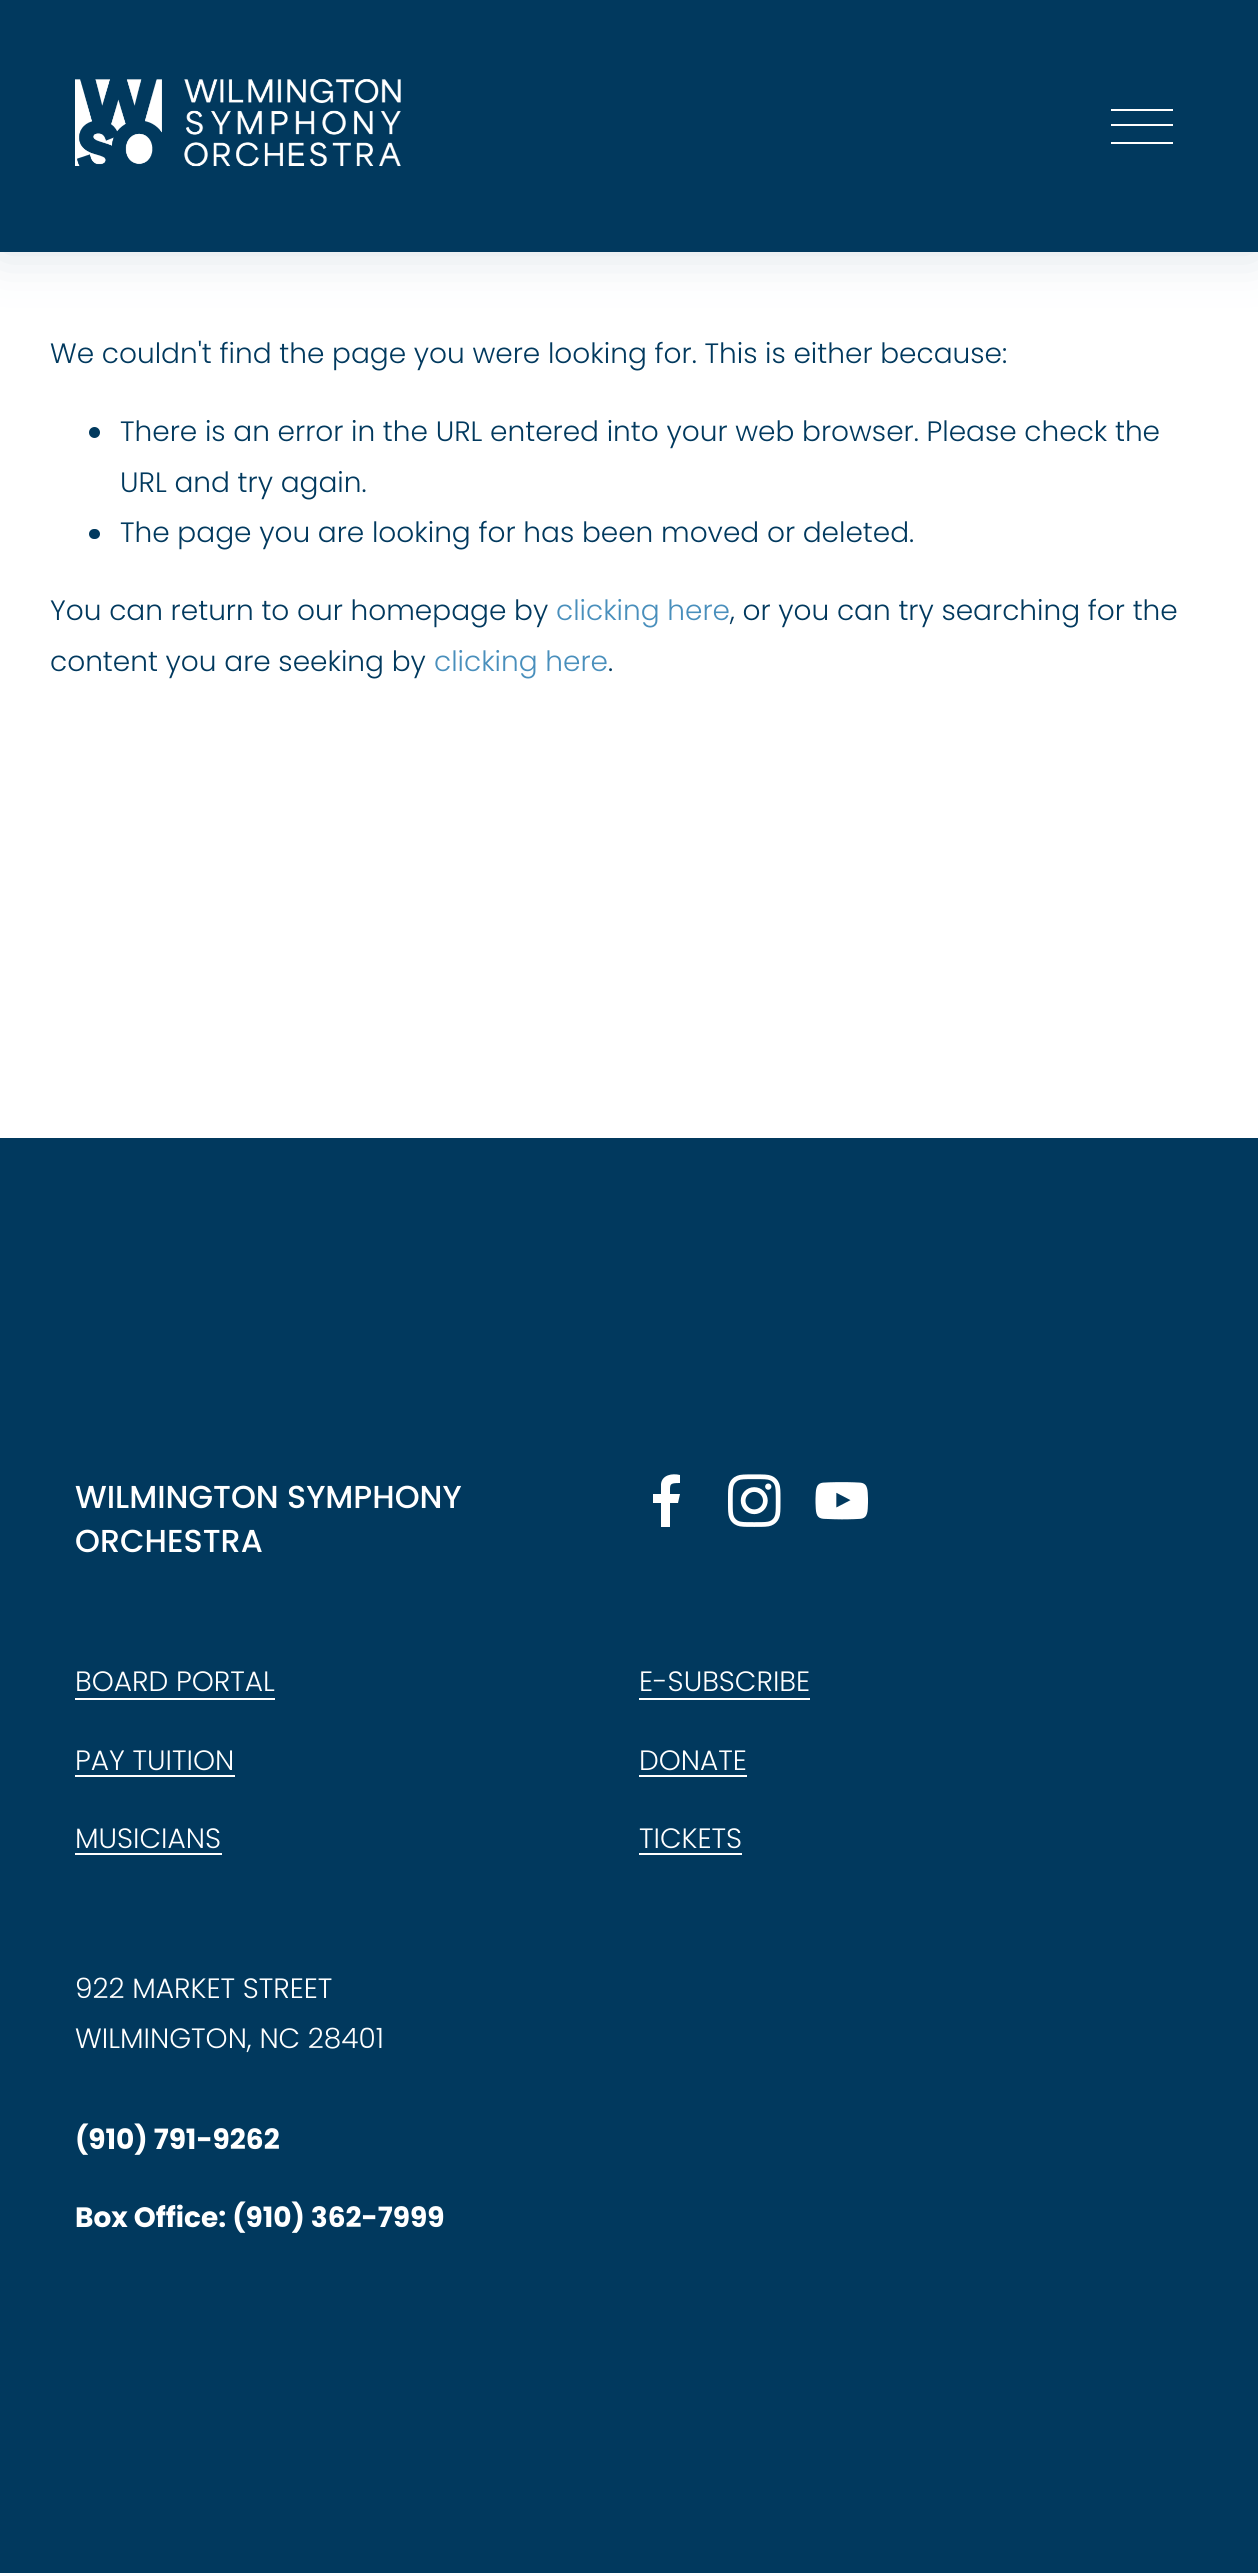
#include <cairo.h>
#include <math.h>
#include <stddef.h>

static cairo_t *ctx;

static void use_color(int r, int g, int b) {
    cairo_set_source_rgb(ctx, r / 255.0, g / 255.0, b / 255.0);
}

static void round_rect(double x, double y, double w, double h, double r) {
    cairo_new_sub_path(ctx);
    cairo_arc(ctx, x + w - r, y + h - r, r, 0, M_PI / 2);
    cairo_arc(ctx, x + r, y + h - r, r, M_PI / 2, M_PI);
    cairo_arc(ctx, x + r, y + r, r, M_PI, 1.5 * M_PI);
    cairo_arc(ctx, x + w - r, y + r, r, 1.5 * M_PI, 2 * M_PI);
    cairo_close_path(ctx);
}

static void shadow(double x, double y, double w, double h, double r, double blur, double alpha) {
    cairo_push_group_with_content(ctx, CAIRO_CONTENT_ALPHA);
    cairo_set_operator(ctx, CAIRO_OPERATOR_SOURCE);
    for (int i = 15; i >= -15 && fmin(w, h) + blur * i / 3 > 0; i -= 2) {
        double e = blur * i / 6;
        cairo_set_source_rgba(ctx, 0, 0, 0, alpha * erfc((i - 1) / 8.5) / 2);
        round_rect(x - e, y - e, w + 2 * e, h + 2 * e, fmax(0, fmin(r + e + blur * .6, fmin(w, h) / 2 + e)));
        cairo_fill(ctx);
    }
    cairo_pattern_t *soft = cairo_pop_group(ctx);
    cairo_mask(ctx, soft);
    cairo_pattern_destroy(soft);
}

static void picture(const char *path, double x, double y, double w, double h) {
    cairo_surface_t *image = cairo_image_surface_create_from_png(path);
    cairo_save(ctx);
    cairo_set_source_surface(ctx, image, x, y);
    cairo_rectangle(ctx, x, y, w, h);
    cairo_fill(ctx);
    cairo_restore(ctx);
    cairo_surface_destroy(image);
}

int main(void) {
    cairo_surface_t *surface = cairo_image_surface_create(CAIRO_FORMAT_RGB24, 1258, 2573);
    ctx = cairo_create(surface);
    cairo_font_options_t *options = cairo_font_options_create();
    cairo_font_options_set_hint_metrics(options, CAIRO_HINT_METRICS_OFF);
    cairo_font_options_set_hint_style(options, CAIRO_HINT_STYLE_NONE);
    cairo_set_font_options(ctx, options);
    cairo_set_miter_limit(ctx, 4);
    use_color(255, 255, 255);
    cairo_paint(ctx);
    use_color(217, 225, 231);
    shadow(0, 0, 1258, 252, 0, 26, 1);
    use_color(1, 57, 94);
    cairo_rectangle(ctx, 0, 0, 1258, 252);
    cairo_fill(ctx);
    picture("img1.png", 75, 79, 326, 88);
    use_color(255, 255, 255);
    cairo_rectangle(ctx, 1111, 109, 62, 2);
    cairo_fill(ctx);
    cairo_rectangle(ctx, 1111, 124, 62, 2);
    cairo_fill(ctx);
    cairo_rectangle(ctx, 1111, 142, 62, 2);
    cairo_fill(ctx);
    cairo_select_font_face(ctx, "Poppins Light", CAIRO_FONT_SLANT_NORMAL, CAIRO_FONT_WEIGHT_NORMAL);
    cairo_set_font_size(ctx, 28);
    use_color(1, 57, 94);
    cairo_move_to(ctx, 50, 363);
    cairo_show_text(ctx, "We couldn't find the page you were looking for. This is either because:");
    cairo_new_path(ctx);
    cairo_arc(ctx, 94.5, 432.5, 5.5, 0, 2 * M_PI);
    cairo_fill(ctx);
    cairo_move_to(ctx, 120, 441);
    cairo_show_text(ctx, "There is an error in the URL entered into your web browser. Please check the");
    cairo_move_to(ctx, 120, 492);
    cairo_show_text(ctx, "URL and try again.");
    round_rect(89, 529, 11, 10, 5);
    cairo_fill(ctx);
    cairo_move_to(ctx, 120, 542);
    cairo_show_text(ctx, "The page you are looking for has been moved or deleted.");
    cairo_move_to(ctx, 50, 620);
    cairo_show_text(ctx, "You can return to our homepage by");
    use_color(73, 143, 188);
    cairo_move_to(ctx, 556, 620);
    cairo_show_text(ctx, "clicking here");
    use_color(1, 57, 94);
    cairo_move_to(ctx, 730, 620);
    cairo_show_text(ctx, ", or you can try searching for the");
    cairo_move_to(ctx, 50, 671);
    cairo_show_text(ctx, "content you are seeking by");
    use_color(73, 143, 188);
    cairo_move_to(ctx, 434, 671);
    cairo_show_text(ctx, "clicking here");
    use_color(1, 57, 94);
    cairo_move_to(ctx, 608, 671);
    cairo_show_text(ctx, ".");
    cairo_rectangle(ctx, 0, 1138, 1258, 1435);
    cairo_fill(ctx);
    cairo_select_font_face(ctx, "Poppins Medium", CAIRO_FONT_SLANT_NORMAL, CAIRO_FONT_WEIGHT_NORMAL);
    cairo_set_font_size(ctx, 31.75);
    use_color(255, 255, 255);
    cairo_move_to(ctx, 75, 1508);
    cairo_show_text(ctx, "WILMINGTON SYMPHONY");
    cairo_move_to(ctx, 75, 1552);
    cairo_show_text(ctx, "ORCHESTRA");
    cairo_new_path(ctx);
    cairo_move_to(ctx, 670, 1527);
    cairo_line_to(ctx, 670, 1503);
    cairo_line_to(ctx, 678, 1503);
    cairo_line_to(ctx, 680, 1494);
    cairo_line_to(ctx, 670, 1494);
    cairo_curve_to(ctx, 670, 1484, 669, 1483, 680, 1483);
    cairo_line_to(ctx, 680, 1475);
    cairo_curve_to(ctx, 672, 1473, 662, 1475, 661, 1484);
    cairo_line_to(ctx, 661, 1494);
    cairo_line_to(ctx, 653, 1494);
    cairo_line_to(ctx, 653, 1503);
    cairo_line_to(ctx, 661, 1503);
    cairo_line_to(ctx, 661, 1527);
    cairo_close_path(ctx);
    cairo_fill(ctx);
    picture("img2.png", 728, 1474, 53, 53);
    picture("img3.png", 815, 1482, 53, 38);
    cairo_select_font_face(ctx, "Poppins Light", CAIRO_FONT_SLANT_NORMAL, CAIRO_FONT_WEIGHT_NORMAL);
    cairo_set_font_size(ctx, 28);
    cairo_move_to(ctx, 75, 1691);
    cairo_show_text(ctx, "BOARD PORTAL");
    cairo_rectangle(ctx, 75, 1698, 200, 2);
    cairo_fill(ctx);
    cairo_move_to(ctx, 75, 1770);
    cairo_show_text(ctx, "PAY TUITION");
    cairo_rectangle(ctx, 75, 1775, 160, 2);
    cairo_fill(ctx);
    cairo_move_to(ctx, 75, 1848);
    cairo_show_text(ctx, "MUSICIANS");
    cairo_rectangle(ctx, 75, 1853, 147, 2);
    cairo_fill(ctx);
    cairo_move_to(ctx, 639, 1691);
    cairo_show_text(ctx, "E-SUBSCRIBE");
    cairo_rectangle(ctx, 639, 1698, 171, 2);
    cairo_fill(ctx);
    cairo_move_to(ctx, 639, 1770);
    cairo_show_text(ctx, "DONATE");
    cairo_rectangle(ctx, 639, 1775, 108, 2);
    cairo_fill(ctx);
    cairo_move_to(ctx, 639, 1848);
    cairo_show_text(ctx, "TICKETS");
    cairo_rectangle(ctx, 639, 1853, 103, 2);
    cairo_fill(ctx);
    cairo_move_to(ctx, 75, 1998);
    cairo_show_text(ctx, "922 MARKET STREET");
    cairo_move_to(ctx, 75, 2048);
    cairo_show_text(ctx, "WILMINGTON, NC 28401");
    cairo_select_font_face(ctx, "Poppins", CAIRO_FONT_SLANT_NORMAL, CAIRO_FONT_WEIGHT_BOLD);
    cairo_move_to(ctx, 75, 2149);
    cairo_show_text(ctx, "(910) 791-9262");
    cairo_move_to(ctx, 75, 2227);
    cairo_show_text(ctx, "Box Office: (910) 362-7999");
    cairo_surface_write_to_png(surface, "result.png");
    cairo_font_options_destroy(options);
    cairo_destroy(ctx);
    cairo_surface_destroy(surface);
    return 0;
}
